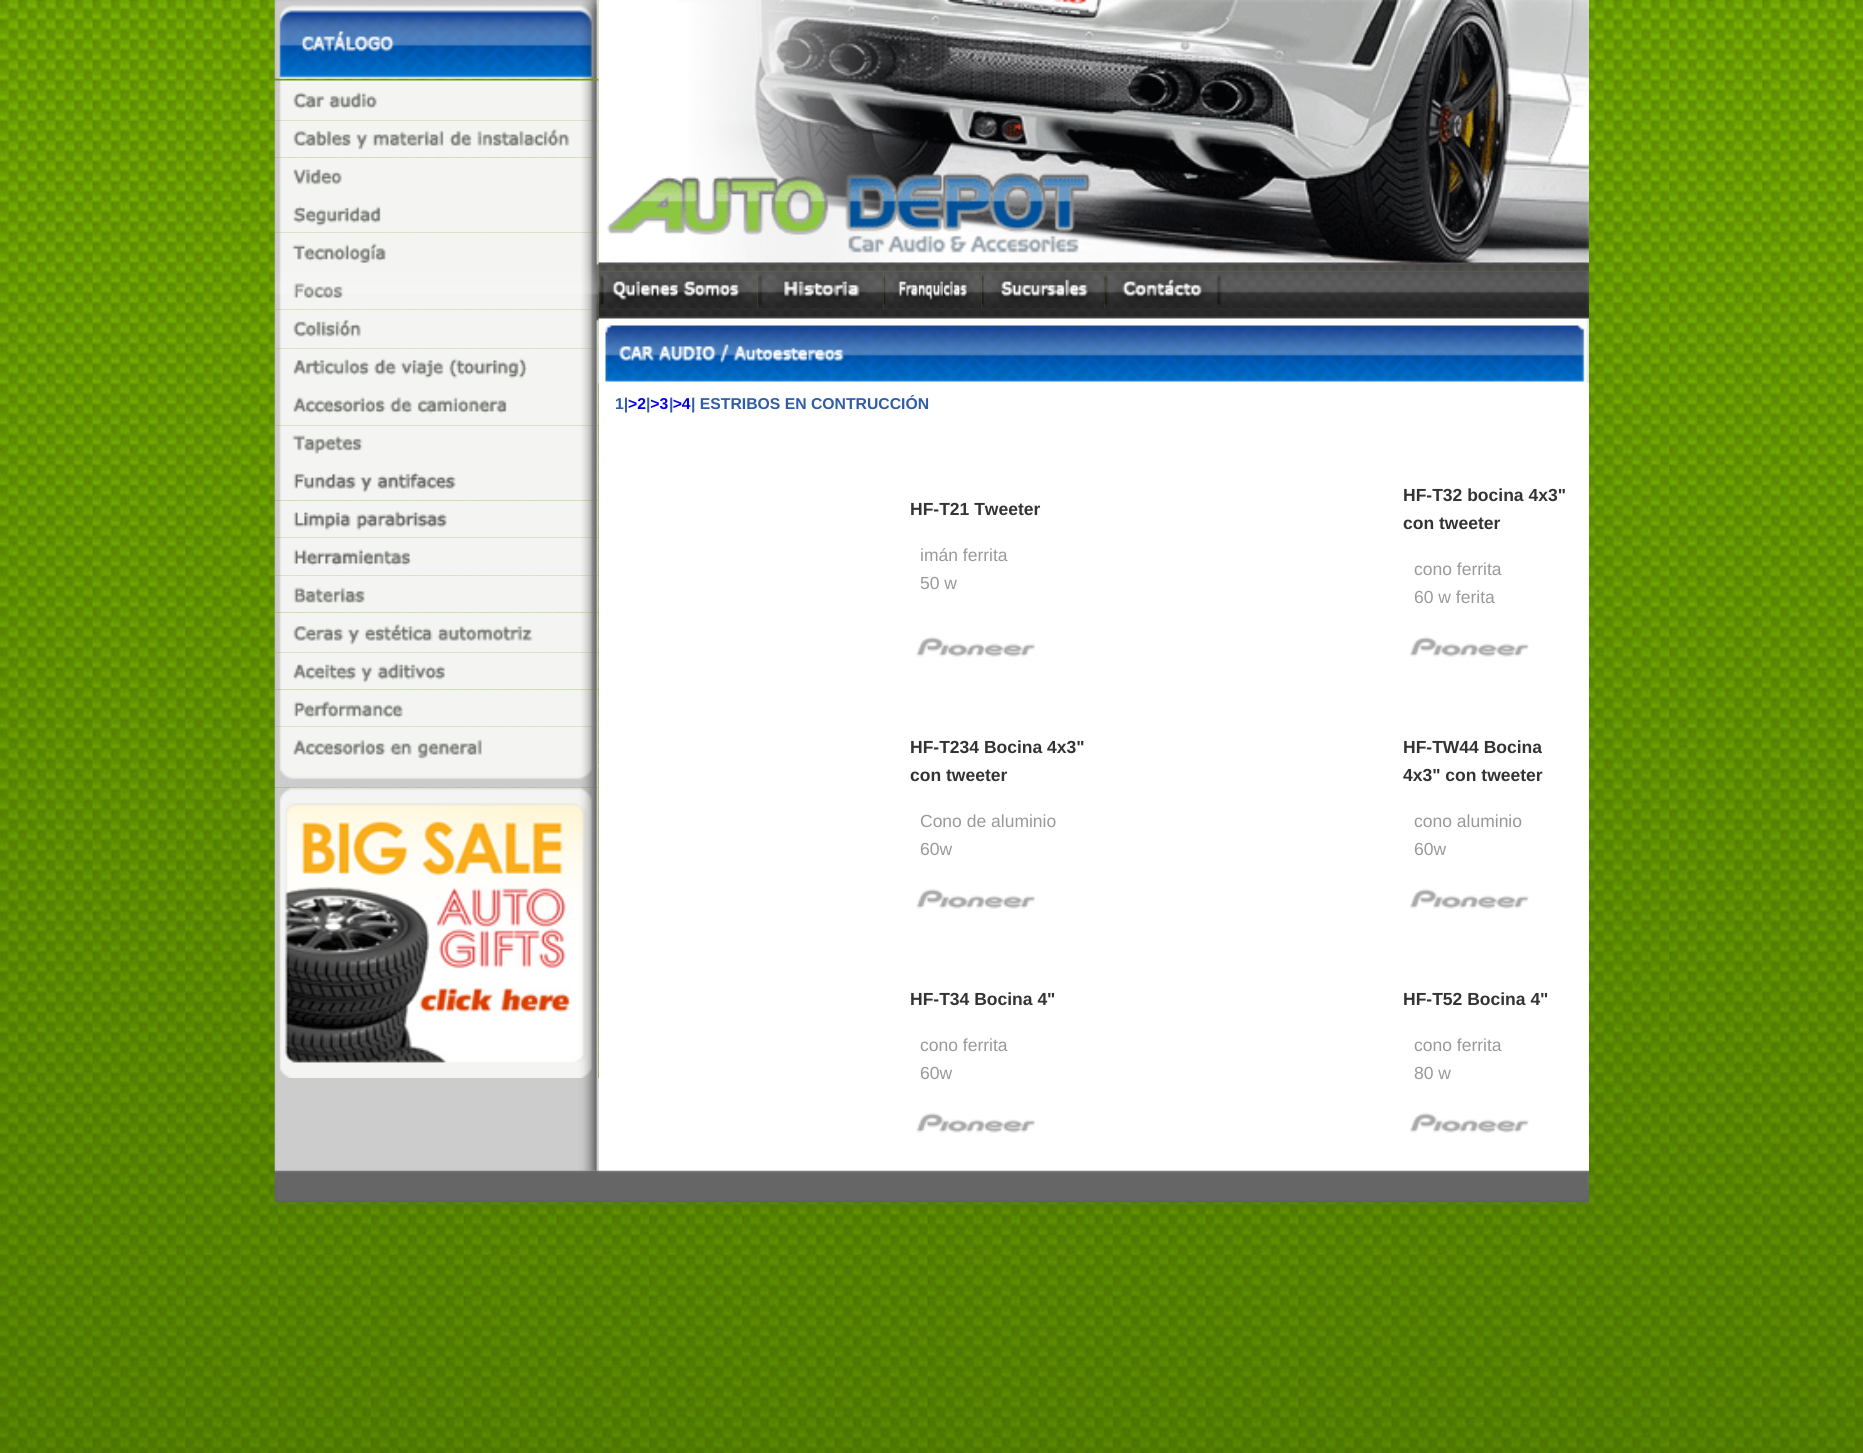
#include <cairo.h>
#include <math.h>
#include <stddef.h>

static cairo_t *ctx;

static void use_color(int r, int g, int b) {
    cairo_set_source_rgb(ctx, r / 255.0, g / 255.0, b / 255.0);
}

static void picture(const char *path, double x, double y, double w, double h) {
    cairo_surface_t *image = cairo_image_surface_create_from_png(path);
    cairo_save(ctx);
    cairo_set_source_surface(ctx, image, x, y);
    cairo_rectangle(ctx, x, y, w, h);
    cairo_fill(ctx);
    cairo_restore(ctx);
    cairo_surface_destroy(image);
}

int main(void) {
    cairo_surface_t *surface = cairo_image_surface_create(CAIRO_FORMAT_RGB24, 1863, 1453);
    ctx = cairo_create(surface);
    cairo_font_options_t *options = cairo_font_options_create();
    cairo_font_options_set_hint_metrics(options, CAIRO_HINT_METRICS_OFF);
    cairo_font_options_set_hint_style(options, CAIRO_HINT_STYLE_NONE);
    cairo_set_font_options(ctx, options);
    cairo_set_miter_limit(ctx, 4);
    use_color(255, 255, 255);
    cairo_paint(ctx);
    picture("img1.png", 0, 0, 1863, 1453);
    picture("img2.png", 274, 0, 325, 79);
    picture("img3.png", 598, 0, 991, 272);
    picture("img4.png", 274, 80, 325, 41);
    picture("img5.png", 274, 120, 325, 38);
    picture("img6.png", 274, 157, 325, 39);
    picture("img7.png", 274, 196, 325, 37);
    picture("img22.png", 598, 271, 160, 37);
    picture("img8.png", 274, 232, 325, 41);
    use_color(255, 255, 255);
    cairo_rectangle(ctx, 599, 383, 990, 788);
    cairo_fill(ctx);
    picture("img27.png", 598, 308, 991, 76);
    picture("img9.png", 274, 273, 325, 37);
    picture("img10.png", 274, 309, 325, 40);
    picture("img11.png", 274, 348, 325, 37);
    picture("img12.png", 274, 385, 325, 41);
    picture("img13.png", 274, 425, 325, 37);
    picture("img14.png", 274, 462, 325, 39);
    picture("img15.png", 274, 500, 325, 38);
    picture("img16.png", 274, 537, 325, 39);
    picture("img17.png", 274, 575, 325, 38);
    picture("img18.png", 274, 612, 325, 41);
    picture("img19.png", 274, 652, 325, 38);
    picture("img20.png", 274, 689, 325, 38);
    picture("img28.png", 274, 764, 325, 24);
    picture("img21.png", 274, 726, 325, 41);
    picture("img23.png", 757, 271, 127, 37);
    picture("img24.png", 883, 271, 99, 37);
    picture("img25.png", 981, 271, 124, 37);
    picture("img26.png", 1104, 271, 485, 37);
    cairo_select_font_face(ctx, "Liberation Sans", CAIRO_FONT_SLANT_NORMAL, CAIRO_FONT_WEIGHT_BOLD);
    cairo_set_font_size(ctx, 15.75);
    use_color(47, 93, 168);
    cairo_move_to(ctx, 615, 409);
    cairo_show_text(ctx, "1|");
    use_color(0, 0, 238);
    cairo_move_to(ctx, 628, 409);
    cairo_show_text(ctx, ">2 >3 >4");
    use_color(47, 93, 168);
    cairo_move_to(ctx, 646, 409);
    cairo_show_text(ctx, "|");
    cairo_move_to(ctx, 669, 409);
    cairo_show_text(ctx, "|");
    cairo_move_to(ctx, 691, 409);
    cairo_show_text(ctx, "| ESTRIBOS EN CONTRUCCIÓN");
    cairo_set_font_size(ctx, 17.5);
    use_color(51, 51, 51);
    cairo_move_to(ctx, 910, 515);
    cairo_show_text(ctx, "HF-T21 Tweeter");
    cairo_select_font_face(ctx, "Liberation Sans", CAIRO_FONT_SLANT_NORMAL, CAIRO_FONT_WEIGHT_NORMAL);
    use_color(153, 153, 153);
    cairo_move_to(ctx, 920, 561);
    cairo_show_text(ctx, "imán ferrita");
    cairo_move_to(ctx, 920, 589);
    cairo_show_text(ctx, "50 w");
    cairo_select_font_face(ctx, "Liberation Sans", CAIRO_FONT_SLANT_NORMAL, CAIRO_FONT_WEIGHT_BOLD);
    use_color(51, 51, 51);
    cairo_move_to(ctx, 1403, 501);
    cairo_show_text(ctx, "HF-T32 bocina 4x3\"");
    cairo_move_to(ctx, 1403, 529);
    cairo_show_text(ctx, "con tweeter");
    cairo_select_font_face(ctx, "Liberation Sans", CAIRO_FONT_SLANT_NORMAL, CAIRO_FONT_WEIGHT_NORMAL);
    use_color(153, 153, 153);
    cairo_move_to(ctx, 1414, 575);
    cairo_show_text(ctx, "cono ferrita");
    cairo_move_to(ctx, 1414, 603);
    cairo_show_text(ctx, "60 w ferita");
    picture("img29.png", 916, 636, 119, 21);
    picture("img30.png", 1410, 636, 119, 21);
    cairo_select_font_face(ctx, "Liberation Sans", CAIRO_FONT_SLANT_NORMAL, CAIRO_FONT_WEIGHT_BOLD);
    use_color(51, 51, 51);
    cairo_move_to(ctx, 910, 753);
    cairo_show_text(ctx, "HF-T234 Bocina 4x3\"");
    cairo_move_to(ctx, 910, 781);
    cairo_show_text(ctx, "con tweeter");
    cairo_select_font_face(ctx, "Liberation Sans", CAIRO_FONT_SLANT_NORMAL, CAIRO_FONT_WEIGHT_NORMAL);
    use_color(153, 153, 153);
    cairo_move_to(ctx, 920, 827);
    cairo_show_text(ctx, "Cono de aluminio");
    cairo_move_to(ctx, 920, 855);
    cairo_show_text(ctx, "60w");
    cairo_select_font_face(ctx, "Liberation Sans", CAIRO_FONT_SLANT_NORMAL, CAIRO_FONT_WEIGHT_BOLD);
    use_color(51, 51, 51);
    cairo_move_to(ctx, 1403, 753);
    cairo_show_text(ctx, "HF-TW44 Bocina");
    cairo_move_to(ctx, 1403, 781);
    cairo_show_text(ctx, "4x3\" con tweeter");
    cairo_select_font_face(ctx, "Liberation Sans", CAIRO_FONT_SLANT_NORMAL, CAIRO_FONT_WEIGHT_NORMAL);
    use_color(153, 153, 153);
    cairo_move_to(ctx, 1414, 827);
    cairo_show_text(ctx, "cono aluminio");
    cairo_move_to(ctx, 1414, 855);
    cairo_show_text(ctx, "60w");
    picture("img29.png", 916, 888, 119, 21);
    picture("img30.png", 1410, 888, 119, 21);
    cairo_select_font_face(ctx, "Liberation Sans", CAIRO_FONT_SLANT_NORMAL, CAIRO_FONT_WEIGHT_BOLD);
    use_color(51, 51, 51);
    cairo_move_to(ctx, 910, 1005);
    cairo_show_text(ctx, "HF-T34 Bocina 4\"");
    cairo_select_font_face(ctx, "Liberation Sans", CAIRO_FONT_SLANT_NORMAL, CAIRO_FONT_WEIGHT_NORMAL);
    use_color(153, 153, 153);
    cairo_move_to(ctx, 920, 1051);
    cairo_show_text(ctx, "cono ferrita");
    cairo_move_to(ctx, 920, 1079);
    cairo_show_text(ctx, "60w");
    cairo_select_font_face(ctx, "Liberation Sans", CAIRO_FONT_SLANT_NORMAL, CAIRO_FONT_WEIGHT_BOLD);
    use_color(51, 51, 51);
    cairo_move_to(ctx, 1403, 1005);
    cairo_show_text(ctx, "HF-T52 Bocina 4\"");
    cairo_select_font_face(ctx, "Liberation Sans", CAIRO_FONT_SLANT_NORMAL, CAIRO_FONT_WEIGHT_NORMAL);
    use_color(153, 153, 153);
    cairo_move_to(ctx, 1414, 1051);
    cairo_show_text(ctx, "cono ferrita");
    cairo_move_to(ctx, 1414, 1079);
    cairo_show_text(ctx, "80 w");
    picture("img29.png", 916, 1112, 119, 21);
    picture("img30.png", 1410, 1112, 119, 21);
    picture("img31.png", 274, 787, 325, 291);
    use_color(204, 204, 204);
    cairo_rectangle(ctx, 275, 1078, 324, 93);
    cairo_fill(ctx);
    picture("img32.png", 274, 1078, 325, 93);
    picture("img33.png", 274, 1170, 1315, 33);
    cairo_surface_write_to_png(surface, "result.png");
    cairo_font_options_destroy(options);
    cairo_destroy(ctx);
    cairo_surface_destroy(surface);
    return 0;
}
